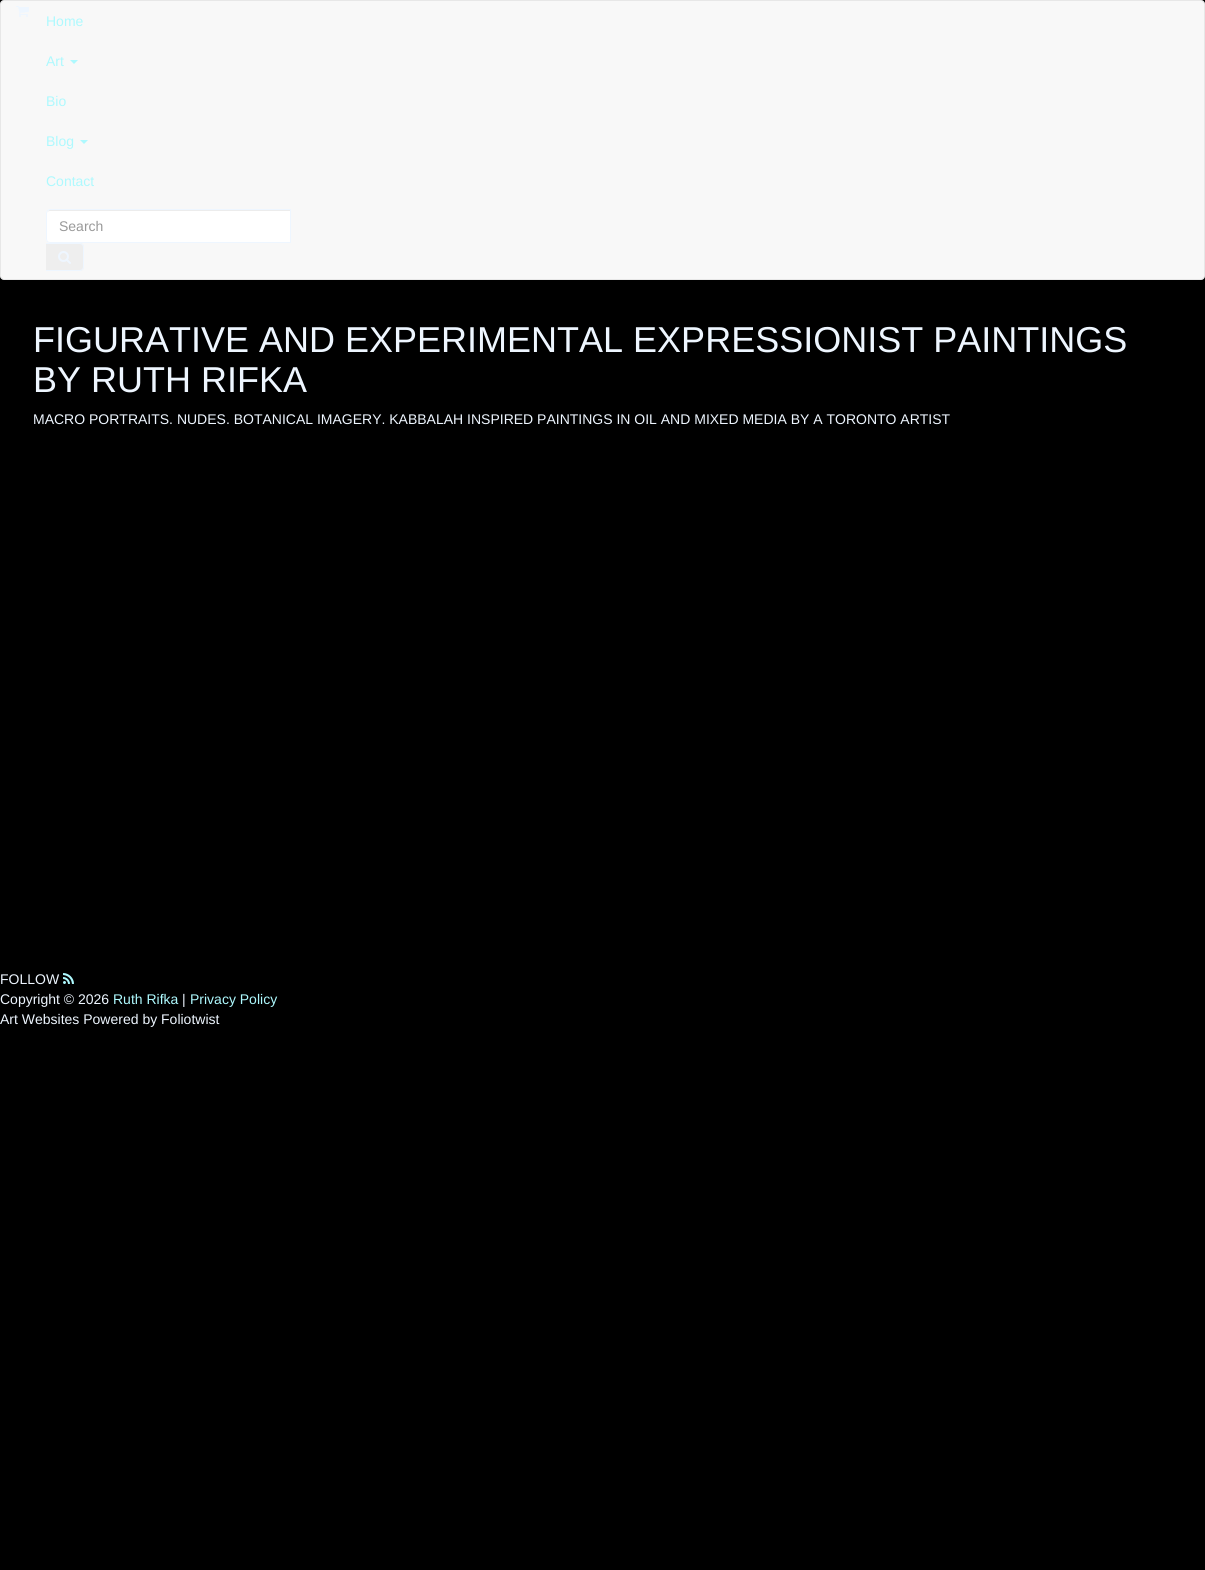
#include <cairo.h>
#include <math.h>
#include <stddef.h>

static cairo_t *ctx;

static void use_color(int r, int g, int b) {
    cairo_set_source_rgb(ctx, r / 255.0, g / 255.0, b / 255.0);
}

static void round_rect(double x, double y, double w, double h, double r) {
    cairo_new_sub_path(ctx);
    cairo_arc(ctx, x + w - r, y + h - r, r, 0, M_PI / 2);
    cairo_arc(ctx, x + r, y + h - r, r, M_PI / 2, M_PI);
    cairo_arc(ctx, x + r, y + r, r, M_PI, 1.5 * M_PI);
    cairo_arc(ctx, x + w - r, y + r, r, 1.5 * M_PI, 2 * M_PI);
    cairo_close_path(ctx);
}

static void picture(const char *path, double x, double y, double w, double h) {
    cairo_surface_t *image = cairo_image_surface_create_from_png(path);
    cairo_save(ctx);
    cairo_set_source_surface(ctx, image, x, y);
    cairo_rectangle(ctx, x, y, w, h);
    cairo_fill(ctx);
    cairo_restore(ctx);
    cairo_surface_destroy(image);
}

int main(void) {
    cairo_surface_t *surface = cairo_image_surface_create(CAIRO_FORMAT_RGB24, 1205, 1570);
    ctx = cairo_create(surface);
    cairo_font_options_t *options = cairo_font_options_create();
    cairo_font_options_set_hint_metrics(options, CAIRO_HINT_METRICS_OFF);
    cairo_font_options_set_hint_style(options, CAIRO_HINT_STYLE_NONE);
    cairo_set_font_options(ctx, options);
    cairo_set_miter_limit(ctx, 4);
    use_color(0, 0, 0);
    cairo_paint(ctx);
    use_color(248, 248, 248);
    round_rect(0.5, 0.5, 1204, 279, 3.5);
    cairo_fill_preserve(ctx);
    use_color(231, 231, 231);
    cairo_set_line_width(ctx, 1);
    cairo_stroke(ctx);
    picture("img1.png", 16, 6, 13, 11);
    cairo_select_font_face(ctx, "Liberation Sans", CAIRO_FONT_SLANT_NORMAL, CAIRO_FONT_WEIGHT_NORMAL);
    cairo_set_font_size(ctx, 14);
    use_color(174, 249, 254);
    cairo_move_to(ctx, 46, 26);
    cairo_show_text(ctx, "Home");
    cairo_move_to(ctx, 46, 66);
    cairo_show_text(ctx, "Art");
    cairo_new_path(ctx);
    cairo_move_to(ctx, 70, 60);
    cairo_line_to(ctx, 78, 60);
    cairo_line_to(ctx, 74, 64);
    cairo_close_path(ctx);
    cairo_fill(ctx);
    cairo_move_to(ctx, 46, 106);
    cairo_show_text(ctx, "Bio");
    cairo_move_to(ctx, 46, 146);
    cairo_show_text(ctx, "Blog");
    cairo_new_path(ctx);
    cairo_move_to(ctx, 80, 140);
    cairo_line_to(ctx, 88, 140);
    cairo_line_to(ctx, 84, 144);
    cairo_close_path(ctx);
    cairo_fill(ctx);
    cairo_move_to(ctx, 46, 186);
    cairo_show_text(ctx, "Contact");
    use_color(255, 255, 255);
    cairo_new_path(ctx);
    cairo_move_to(ctx, 50, 209);
    cairo_line_to(ctx, 291, 209);
    cairo_line_to(ctx, 291, 243);
    cairo_line_to(ctx, 50, 243);
    cairo_curve_to(ctx, 48, 243, 46, 241, 46, 239);
    cairo_line_to(ctx, 46, 213);
    cairo_curve_to(ctx, 46, 211, 48, 209, 50, 209);
    cairo_close_path(ctx);
    cairo_fill(ctx);
    use_color(236, 236, 236);
    cairo_new_path(ctx);
    cairo_move_to(ctx, 50, 211);
    cairo_line_to(ctx, 290, 211);
    cairo_line_to(ctx, 290, 210);
    cairo_line_to(ctx, 50, 210);
    cairo_curve_to(ctx, 48, 210, 47, 212, 47, 214);
    cairo_curve_to(ctx, 47, 212, 48, 211, 50, 211);
    cairo_close_path(ctx);
    cairo_fill(ctx);
    cairo_new_path(ctx);
    cairo_move_to(ctx, 50, 209.5);
    cairo_line_to(ctx, 290.5, 209.5);
    cairo_line_to(ctx, 290.5, 242.5);
    cairo_line_to(ctx, 50, 242.5);
    cairo_curve_to(ctx, 48, 242.5, 46.5, 241, 46.5, 239);
    cairo_line_to(ctx, 46.5, 213);
    cairo_curve_to(ctx, 46.5, 211, 48, 209.5, 50, 209.5);
    cairo_close_path(ctx);
    use_color(238, 246, 255);
    cairo_stroke(ctx);
    use_color(153, 153, 153);
    cairo_move_to(ctx, 59, 231);
    cairo_show_text(ctx, "Search");
    use_color(238, 238, 238);
    cairo_new_path(ctx);
    cairo_move_to(ctx, 46, 243);
    cairo_line_to(ctx, 80, 243);
    cairo_curve_to(ctx, 82, 243, 84, 245, 84, 247);
    cairo_line_to(ctx, 84, 267);
    cairo_curve_to(ctx, 84, 269, 82, 271, 80, 271);
    cairo_line_to(ctx, 46, 271);
    cairo_close_path(ctx);
    cairo_fill(ctx);
    use_color(238, 246, 255);
    cairo_set_fill_rule(ctx, CAIRO_FILL_RULE_EVEN_ODD);
    cairo_new_path(ctx);
    cairo_move_to(ctx, 46, 243);
    cairo_line_to(ctx, 80, 243);
    cairo_curve_to(ctx, 82, 243, 84, 245, 84, 247);
    cairo_line_to(ctx, 84, 267);
    cairo_curve_to(ctx, 84, 269, 82, 271, 80, 271);
    cairo_line_to(ctx, 46, 271);
    cairo_close_path(ctx);
    cairo_move_to(ctx, 46, 244);
    cairo_line_to(ctx, 80, 244);
    cairo_curve_to(ctx, 81.5, 244, 83, 245.5, 83, 247);
    cairo_line_to(ctx, 83, 267);
    cairo_curve_to(ctx, 83, 268.5, 81.5, 270, 80, 270);
    cairo_line_to(ctx, 46, 270);
    cairo_close_path(ctx);
    cairo_fill(ctx);
    picture("img2.png", 58, 251, 13, 13);
    cairo_set_font_size(ctx, 36);
    cairo_move_to(ctx, 33, 352);
    cairo_show_text(ctx, "FIGURATIVE AND EXPERIMENTAL EXPRESSIONIST PAINTINGS");
    cairo_move_to(ctx, 33, 392);
    cairo_show_text(ctx, "BY RUTH RIFKA");
    cairo_set_font_size(ctx, 14);
    cairo_move_to(ctx, 33, 424);
    cairo_show_text(ctx, "MACRO PORTRAITS. NUDES. BOTANICAL IMAGERY. KABBALAH INSPIRED PAINTINGS IN OIL AND MIXED MEDIA BY A TORONTO ARTIST");
    cairo_move_to(ctx, 0, 984);
    cairo_show_text(ctx, "FOLLOW");
    picture("img3.png", 63, 973, 11, 11);
    cairo_move_to(ctx, 0, 1004);
    cairo_show_text(ctx, "Copyright © 2026");
    use_color(174, 249, 254);
    cairo_move_to(ctx, 113, 1004);
    cairo_show_text(ctx, "Ruth Rifka");
    use_color(238, 246, 255);
    cairo_move_to(ctx, 182, 1004);
    cairo_show_text(ctx, "|");
    use_color(174, 249, 254);
    cairo_move_to(ctx, 190, 1004);
    cairo_show_text(ctx, "Privacy Policy");
    use_color(238, 246, 255);
    cairo_move_to(ctx, 0, 1024);
    cairo_show_text(ctx, "Art Websites Powered by Foliotwist");
    cairo_surface_write_to_png(surface, "result.png");
    cairo_font_options_destroy(options);
    cairo_destroy(ctx);
    cairo_surface_destroy(surface);
    return 0;
}
